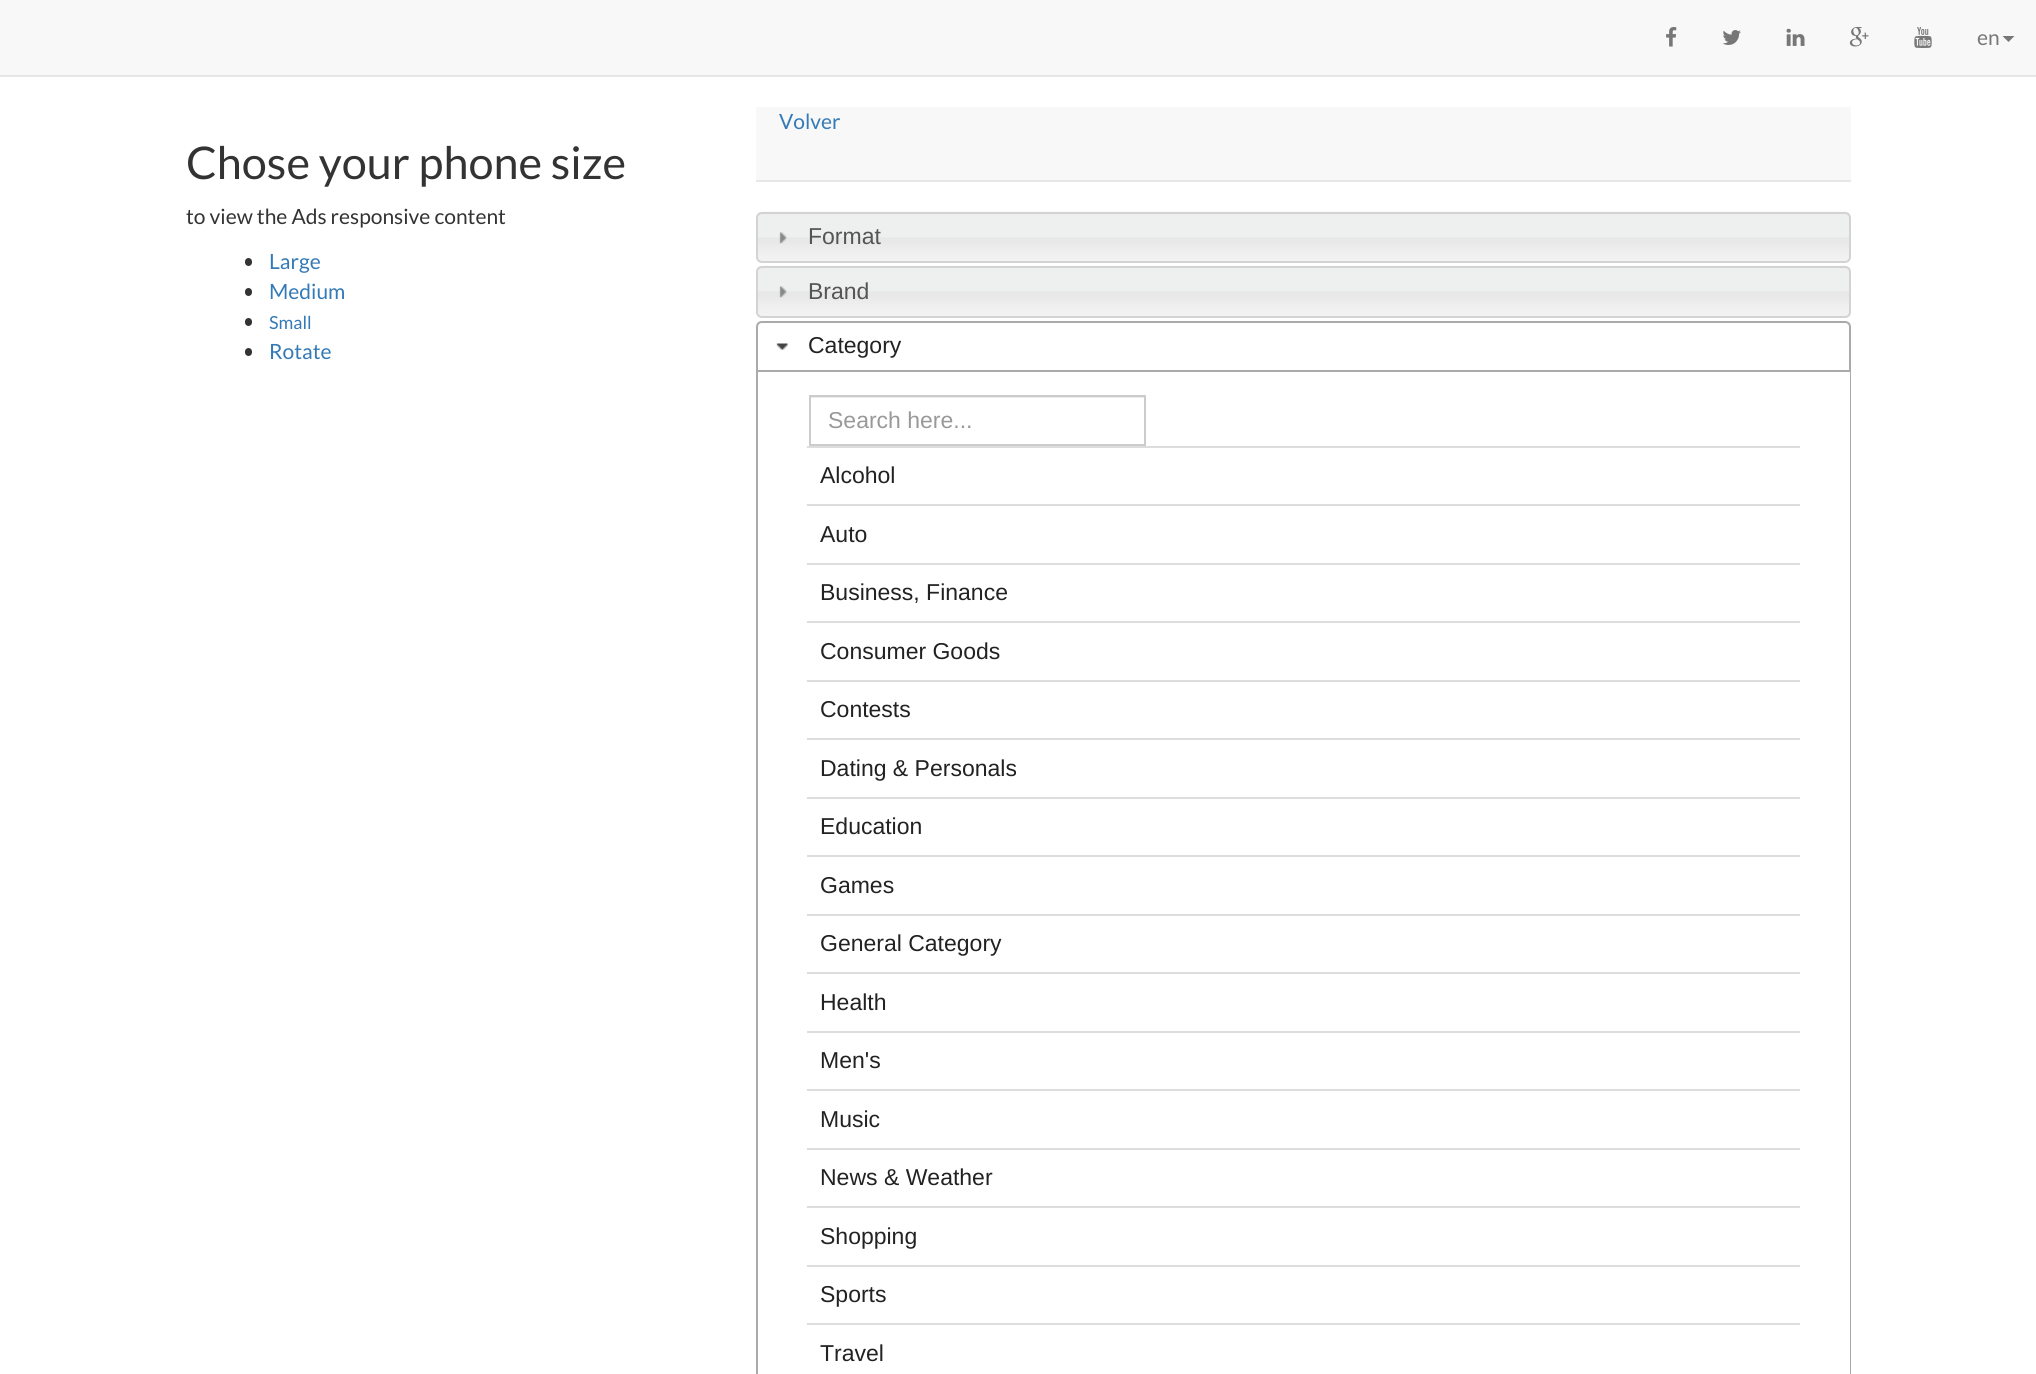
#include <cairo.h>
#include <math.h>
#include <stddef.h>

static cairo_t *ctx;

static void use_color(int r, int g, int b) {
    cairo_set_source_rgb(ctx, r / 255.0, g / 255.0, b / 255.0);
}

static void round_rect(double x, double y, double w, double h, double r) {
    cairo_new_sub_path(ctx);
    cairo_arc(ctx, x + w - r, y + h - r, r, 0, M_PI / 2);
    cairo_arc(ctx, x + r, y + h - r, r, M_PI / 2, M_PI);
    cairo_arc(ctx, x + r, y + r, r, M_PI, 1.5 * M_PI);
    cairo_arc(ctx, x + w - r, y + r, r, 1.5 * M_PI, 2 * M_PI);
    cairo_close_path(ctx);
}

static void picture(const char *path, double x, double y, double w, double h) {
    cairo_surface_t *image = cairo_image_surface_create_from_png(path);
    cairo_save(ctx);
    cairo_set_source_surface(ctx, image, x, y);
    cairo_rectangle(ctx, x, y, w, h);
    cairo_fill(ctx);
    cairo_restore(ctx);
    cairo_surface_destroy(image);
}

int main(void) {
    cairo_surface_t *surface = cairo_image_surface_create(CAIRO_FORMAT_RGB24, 2036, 1374);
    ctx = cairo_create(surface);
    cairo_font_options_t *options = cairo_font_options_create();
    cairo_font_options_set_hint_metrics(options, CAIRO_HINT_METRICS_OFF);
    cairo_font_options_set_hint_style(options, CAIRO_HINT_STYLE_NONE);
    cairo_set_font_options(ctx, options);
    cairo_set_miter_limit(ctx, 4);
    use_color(255, 255, 255);
    cairo_paint(ctx);
    use_color(248, 248, 248);
    cairo_rectangle(ctx, 0, 0, 2036, 75);
    cairo_fill(ctx);
    use_color(231, 231, 231);
    cairo_rectangle(ctx, 0, 75, 2036, 2);
    cairo_fill(ctx);
    picture("img1.png", 1666, 27, 11, 20);
    picture("img2.png", 1722, 30, 19, 15);
    picture("img3.png", 1786, 28, 19, 18);
    picture("img4.png", 1849, 27, 20, 20);
    picture("img5.png", 1914, 27, 18, 21);
    cairo_select_font_face(ctx, "Lato", CAIRO_FONT_SLANT_NORMAL, CAIRO_FONT_WEIGHT_NORMAL);
    cairo_set_font_size(ctx, 21);
    use_color(119, 119, 119);
    cairo_move_to(ctx, 1977, 45);
    cairo_show_text(ctx, "en");
    cairo_new_path(ctx);
    cairo_move_to(ctx, 2002.5, 36);
    cairo_line_to(ctx, 2014.5, 36);
    cairo_line_to(ctx, 2008.5, 42);
    cairo_close_path(ctx);
    cairo_fill(ctx);
    cairo_set_font_size(ctx, 45);
    use_color(51, 51, 51);
    cairo_move_to(ctx, 186, 179);
    cairo_show_text(ctx, "Chose your phone size");
    cairo_set_font_size(ctx, 21);
    cairo_move_to(ctx, 186, 224);
    cairo_show_text(ctx, "to view the Ads responsive content");
    round_rect(245, 258, 7, 8, 3.5);
    cairo_fill(ctx);
    use_color(51, 122, 183);
    cairo_move_to(ctx, 269, 269);
    cairo_show_text(ctx, "Large");
    use_color(51, 51, 51);
    round_rect(245, 288, 7, 8, 3.5);
    cairo_fill(ctx);
    use_color(51, 122, 183);
    cairo_move_to(ctx, 269, 299);
    cairo_show_text(ctx, "Medium");
    use_color(51, 51, 51);
    round_rect(245, 318, 7, 8, 3.5);
    cairo_fill(ctx);
    cairo_set_font_size(ctx, 18);
    use_color(51, 122, 183);
    cairo_move_to(ctx, 269, 329);
    cairo_show_text(ctx, "Small");
    use_color(51, 51, 51);
    round_rect(245, 348, 7, 8, 3.5);
    cairo_fill(ctx);
    cairo_set_font_size(ctx, 21);
    use_color(51, 122, 183);
    cairo_move_to(ctx, 269, 359);
    cairo_show_text(ctx, "Rotate");
    use_color(248, 248, 248);
    cairo_rectangle(ctx, 756, 107, 1095, 73);
    cairo_fill(ctx);
    use_color(231, 231, 231);
    cairo_rectangle(ctx, 756, 180, 1095, 2);
    cairo_fill(ctx);
    use_color(51, 122, 183);
    cairo_move_to(ctx, 779, 129);
    cairo_show_text(ctx, "Volver");
    picture("img6.png", 756, 211, 1095, 51);
    round_rect(757, 213, 1093, 49, 5);
    use_color(211, 211, 211);
    cairo_stroke(ctx);
    picture("img7.png", 779, 232, 8, 12);
    cairo_select_font_face(ctx, "Liberation Sans", CAIRO_FONT_SLANT_NORMAL, CAIRO_FONT_WEIGHT_NORMAL);
    cairo_set_font_size(ctx, 23);
    use_color(85, 85, 85);
    cairo_move_to(ctx, 808, 244);
    cairo_show_text(ctx, "Format");
    picture("img8.png", 756, 265, 1095, 53);
    round_rect(757, 267, 1093, 50, 5);
    use_color(211, 211, 211);
    cairo_stroke(ctx);
    picture("img7.png", 779, 286, 8, 12);
    use_color(85, 85, 85);
    cairo_move_to(ctx, 808, 299);
    cairo_show_text(ctx, "Brand");
    cairo_new_path(ctx);
    cairo_move_to(ctx, 762, 322);
    cairo_line_to(ctx, 1845, 322);
    cairo_curve_to(ctx, 1848, 322, 1850, 324, 1850, 327);
    cairo_line_to(ctx, 1850, 371);
    cairo_line_to(ctx, 757, 371);
    cairo_line_to(ctx, 757, 327);
    cairo_curve_to(ctx, 757, 324, 759, 322, 762, 322);
    cairo_close_path(ctx);
    use_color(170, 170, 170);
    cairo_stroke(ctx);
    picture("img9.png", 776, 343, 12, 7);
    use_color(34, 34, 34);
    cairo_move_to(ctx, 808, 353);
    cairo_show_text(ctx, "Category");
    use_color(170, 170, 170);
    cairo_set_fill_rule(ctx, CAIRO_FILL_RULE_EVEN_ODD);
    cairo_new_path(ctx);
    cairo_move_to(ctx, 756, 372);
    cairo_line_to(ctx, 1851, 372);
    cairo_line_to(ctx, 1851, 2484);
    cairo_curve_to(ctx, 1851, 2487, 1848, 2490, 1845, 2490);
    cairo_line_to(ctx, 762, 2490);
    cairo_curve_to(ctx, 759, 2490, 756, 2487, 756, 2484);
    cairo_close_path(ctx);
    cairo_move_to(ctx, 758, 372);
    cairo_line_to(ctx, 1850, 372);
    cairo_line_to(ctx, 1850, 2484);
    cairo_curve_to(ctx, 1850, 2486, 1847, 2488, 1845, 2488);
    cairo_line_to(ctx, 762, 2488);
    cairo_curve_to(ctx, 760, 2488, 758, 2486, 758, 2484);
    cairo_close_path(ctx);
    cairo_fill(ctx);
    use_color(236, 236, 236);
    cairo_rectangle(ctx, 810, 397, 335, 1);
    cairo_fill(ctx);
    cairo_rectangle(ctx, 810, 396, 335, 49);
    use_color(204, 204, 204);
    cairo_stroke(ctx);
    use_color(153, 153, 153);
    cairo_move_to(ctx, 828, 428);
    cairo_show_text(ctx, "Search here...");
    use_color(221, 221, 221);
    cairo_rectangle(ctx, 807, 446, 993, 2);
    cairo_fill(ctx);
    use_color(34, 34, 34);
    cairo_move_to(ctx, 820, 483);
    cairo_show_text(ctx, "Alcohol");
    use_color(221, 221, 221);
    cairo_rectangle(ctx, 807, 504, 993, 2);
    cairo_fill(ctx);
    use_color(34, 34, 34);
    cairo_move_to(ctx, 820, 542);
    cairo_show_text(ctx, "Auto");
    use_color(221, 221, 221);
    cairo_rectangle(ctx, 807, 563, 993, 2);
    cairo_fill(ctx);
    use_color(34, 34, 34);
    cairo_move_to(ctx, 820, 600);
    cairo_show_text(ctx, "Business, Finance");
    use_color(221, 221, 221);
    cairo_rectangle(ctx, 807, 621, 993, 2);
    cairo_fill(ctx);
    use_color(34, 34, 34);
    cairo_move_to(ctx, 820, 659);
    cairo_show_text(ctx, "Consumer Goods");
    use_color(221, 221, 221);
    cairo_rectangle(ctx, 807, 680, 993, 2);
    cairo_fill(ctx);
    use_color(34, 34, 34);
    cairo_move_to(ctx, 820, 717);
    cairo_show_text(ctx, "Contests");
    use_color(221, 221, 221);
    cairo_rectangle(ctx, 807, 738, 993, 2);
    cairo_fill(ctx);
    use_color(34, 34, 34);
    cairo_move_to(ctx, 820, 776);
    cairo_show_text(ctx, "Dating & Personals");
    use_color(221, 221, 221);
    cairo_rectangle(ctx, 807, 797, 993, 2);
    cairo_fill(ctx);
    use_color(34, 34, 34);
    cairo_move_to(ctx, 820, 834);
    cairo_show_text(ctx, "Education");
    use_color(221, 221, 221);
    cairo_rectangle(ctx, 807, 855, 993, 2);
    cairo_fill(ctx);
    use_color(34, 34, 34);
    cairo_move_to(ctx, 820, 893);
    cairo_show_text(ctx, "Games");
    use_color(221, 221, 221);
    cairo_rectangle(ctx, 807, 914, 993, 2);
    cairo_fill(ctx);
    use_color(34, 34, 34);
    cairo_move_to(ctx, 820, 951);
    cairo_show_text(ctx, "General Category");
    use_color(221, 221, 221);
    cairo_rectangle(ctx, 807, 972, 993, 2);
    cairo_fill(ctx);
    use_color(34, 34, 34);
    cairo_move_to(ctx, 820, 1010);
    cairo_show_text(ctx, "Health");
    use_color(221, 221, 221);
    cairo_rectangle(ctx, 807, 1031, 993, 2);
    cairo_fill(ctx);
    use_color(34, 34, 34);
    cairo_move_to(ctx, 820, 1068);
    cairo_show_text(ctx, "Men's");
    use_color(221, 221, 221);
    cairo_rectangle(ctx, 807, 1089, 993, 2);
    cairo_fill(ctx);
    use_color(34, 34, 34);
    cairo_move_to(ctx, 820, 1127);
    cairo_show_text(ctx, "Music");
    use_color(221, 221, 221);
    cairo_rectangle(ctx, 807, 1148, 993, 2);
    cairo_fill(ctx);
    use_color(34, 34, 34);
    cairo_move_to(ctx, 820, 1185);
    cairo_show_text(ctx, "News & Weather");
    use_color(221, 221, 221);
    cairo_rectangle(ctx, 807, 1206, 993, 2);
    cairo_fill(ctx);
    use_color(34, 34, 34);
    cairo_move_to(ctx, 820, 1244);
    cairo_show_text(ctx, "Shopping");
    use_color(221, 221, 221);
    cairo_rectangle(ctx, 807, 1265, 993, 2);
    cairo_fill(ctx);
    use_color(34, 34, 34);
    cairo_move_to(ctx, 820, 1302);
    cairo_show_text(ctx, "Sports");
    use_color(221, 221, 221);
    cairo_rectangle(ctx, 807, 1323, 993, 2);
    cairo_fill(ctx);
    use_color(34, 34, 34);
    cairo_move_to(ctx, 820, 1361);
    cairo_show_text(ctx, "Travel");
    cairo_surface_write_to_png(surface, "result.png");
    cairo_font_options_destroy(options);
    cairo_destroy(ctx);
    cairo_surface_destroy(surface);
    return 0;
}
